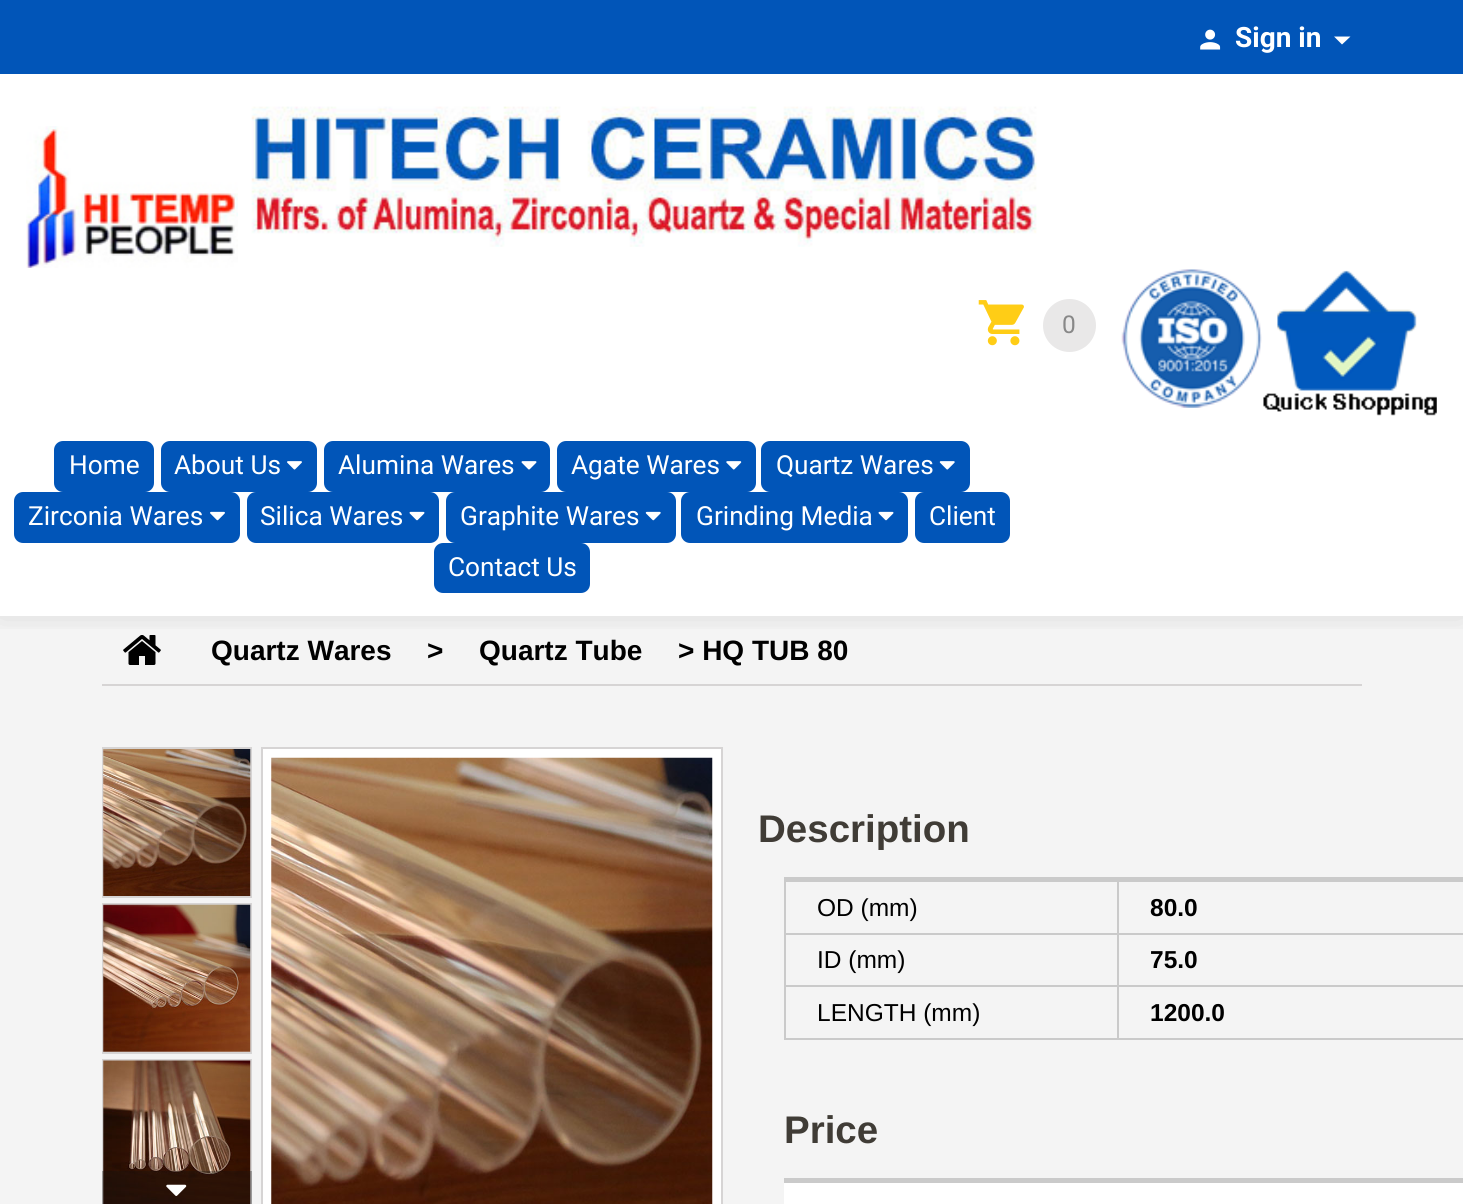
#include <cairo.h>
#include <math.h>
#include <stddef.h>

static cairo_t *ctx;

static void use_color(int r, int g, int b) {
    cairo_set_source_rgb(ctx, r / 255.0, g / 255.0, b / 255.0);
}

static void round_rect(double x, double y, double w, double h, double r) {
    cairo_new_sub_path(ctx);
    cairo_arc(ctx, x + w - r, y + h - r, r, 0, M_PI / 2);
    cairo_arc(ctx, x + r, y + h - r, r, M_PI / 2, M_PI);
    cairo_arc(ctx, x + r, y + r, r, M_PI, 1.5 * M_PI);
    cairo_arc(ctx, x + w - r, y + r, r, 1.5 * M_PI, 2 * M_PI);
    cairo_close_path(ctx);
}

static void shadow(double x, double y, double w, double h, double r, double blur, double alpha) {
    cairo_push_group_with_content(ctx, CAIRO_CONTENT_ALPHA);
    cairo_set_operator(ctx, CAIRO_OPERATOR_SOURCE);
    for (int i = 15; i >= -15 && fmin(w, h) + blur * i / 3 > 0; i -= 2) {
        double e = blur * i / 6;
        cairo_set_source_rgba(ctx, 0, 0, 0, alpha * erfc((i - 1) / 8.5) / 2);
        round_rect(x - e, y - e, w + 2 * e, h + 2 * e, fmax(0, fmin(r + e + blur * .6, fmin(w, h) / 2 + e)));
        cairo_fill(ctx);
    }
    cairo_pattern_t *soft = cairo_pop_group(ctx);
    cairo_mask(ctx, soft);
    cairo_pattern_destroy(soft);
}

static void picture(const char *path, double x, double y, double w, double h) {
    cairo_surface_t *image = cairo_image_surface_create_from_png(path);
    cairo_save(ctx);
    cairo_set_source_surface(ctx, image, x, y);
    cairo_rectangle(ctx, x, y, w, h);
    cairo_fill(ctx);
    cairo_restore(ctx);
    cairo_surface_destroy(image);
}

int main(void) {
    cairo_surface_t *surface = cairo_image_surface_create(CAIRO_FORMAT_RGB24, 1463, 1204);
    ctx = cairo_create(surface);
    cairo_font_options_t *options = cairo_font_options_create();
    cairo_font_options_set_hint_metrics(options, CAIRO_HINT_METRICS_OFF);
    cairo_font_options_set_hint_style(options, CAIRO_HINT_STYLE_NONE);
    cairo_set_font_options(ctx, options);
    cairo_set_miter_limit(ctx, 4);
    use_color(244, 244, 244);
    cairo_paint(ctx);
    use_color(255, 255, 255);
    cairo_rectangle(ctx, 0, 74, 1463, 542);
    cairo_fill(ctx);
    picture("img14.png", 123, 635, 38, 30);
    cairo_save(ctx);
    cairo_rectangle(ctx, 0, 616, 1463, 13);
    cairo_clip(ctx);
    use_color(0, 0, 0);
    shadow(0, -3, 1463, 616, 0, 16.5, 0.12);
    cairo_restore(ctx);
    use_color(1, 85, 184);
    cairo_rectangle(ctx, 0, 0, 1463, 74);
    cairo_fill(ctx);
    picture("img1.png", 1200, 29, 21, 21);
    cairo_select_font_face(ctx, "Roboto", CAIRO_FONT_SLANT_NORMAL, CAIRO_FONT_WEIGHT_BOLD);
    cairo_set_font_size(ctx, 28);
    use_color(255, 255, 255);
    cairo_move_to(ctx, 1235, 47);
    cairo_show_text(ctx, "Sign in");
    cairo_new_path(ctx);
    cairo_move_to(ctx, 1334, 36.5);
    cairo_line_to(ctx, 1342, 44.5);
    cairo_line_to(ctx, 1350.5, 36.5);
    cairo_close_path(ctx);
    cairo_fill(ctx);
    picture("img2.png", 26, 126, 212, 142);
    picture("img3.png", 251, 106, 786, 141);
    picture("img4.png", 978, 300, 46, 46);
    use_color(233, 232, 232);
    cairo_arc(ctx, 1069.5, 325.5, 26.5, 0, 2 * M_PI);
    cairo_fill(ctx);
    cairo_select_font_face(ctx, "Roboto", CAIRO_FONT_SLANT_NORMAL, CAIRO_FONT_WEIGHT_NORMAL);
    cairo_set_font_size(ctx, 24.5);
    use_color(136, 136, 136);
    cairo_move_to(ctx, 1062, 333);
    cairo_show_text(ctx, "0");
    picture("img5.png", 1121, 269, 141, 139);
    picture("img6.png", 1263, 270, 174, 146);
    use_color(1, 85, 184);
    round_rect(54, 441, 100, 51, 9);
    cairo_fill(ctx);
    cairo_set_font_size(ctx, 26.25);
    use_color(255, 255, 255);
    cairo_move_to(ctx, 69, 474);
    cairo_show_text(ctx, "Home");
    use_color(1, 85, 184);
    round_rect(161, 441, 156, 51, 9);
    cairo_fill(ctx);
    use_color(255, 255, 255);
    cairo_move_to(ctx, 174, 474);
    cairo_show_text(ctx, "About Us");
    picture("img7.png", 287, 461, 15, 9);
    use_color(1, 85, 184);
    round_rect(324, 441, 226, 51, 9);
    cairo_fill(ctx);
    use_color(255, 255, 255);
    cairo_move_to(ctx, 338, 474);
    cairo_show_text(ctx, "Alumina Wares");
    picture("img8.png", 521, 461, 16, 9);
    use_color(1, 85, 184);
    round_rect(557, 441, 199, 51, 9);
    cairo_fill(ctx);
    use_color(255, 255, 255);
    cairo_move_to(ctx, 571, 474);
    cairo_show_text(ctx, "Agate Wares");
    picture("img9.png", 726, 461, 16, 9);
    use_color(1, 85, 184);
    round_rect(761, 441, 209, 51, 9);
    cairo_fill(ctx);
    use_color(255, 255, 255);
    cairo_move_to(ctx, 776, 474);
    cairo_show_text(ctx, "Quartz Wares");
    picture("img10.png", 939, 461, 16, 9);
    use_color(1, 85, 184);
    round_rect(14, 492, 226, 51, 9);
    cairo_fill(ctx);
    use_color(255, 255, 255);
    cairo_move_to(ctx, 28, 525);
    cairo_show_text(ctx, "Zirconia Wares");
    picture("img11.png", 210, 511, 15, 10);
    use_color(1, 85, 184);
    round_rect(247, 492, 192, 51, 9);
    cairo_fill(ctx);
    use_color(255, 255, 255);
    cairo_move_to(ctx, 260, 525);
    cairo_show_text(ctx, "Silica Wares");
    picture("img12.png", 409, 511, 16, 10);
    use_color(1, 85, 184);
    round_rect(446, 492, 230, 51, 9);
    cairo_fill(ctx);
    use_color(255, 255, 255);
    cairo_move_to(ctx, 460, 525);
    cairo_show_text(ctx, "Graphite Wares");
    picture("img13.png", 645, 511, 16, 10);
    use_color(1, 85, 184);
    round_rect(681, 492, 227, 51, 9);
    cairo_fill(ctx);
    use_color(255, 255, 255);
    cairo_move_to(ctx, 696, 525);
    cairo_show_text(ctx, "Grinding Media");
    picture("img12.png", 878, 511, 16, 10);
    use_color(1, 85, 184);
    round_rect(915, 492, 95, 51, 9);
    cairo_fill(ctx);
    use_color(255, 255, 255);
    cairo_move_to(ctx, 929, 525);
    cairo_show_text(ctx, "Client");
    use_color(1, 85, 184);
    round_rect(434, 543, 156, 50, 9);
    cairo_fill(ctx);
    use_color(255, 255, 255);
    cairo_move_to(ctx, 448, 576);
    cairo_show_text(ctx, "Contact Us");
    use_color(214, 212, 212);
    cairo_rectangle(ctx, 102, 684, 1260, 2);
    cairo_fill(ctx);
    cairo_select_font_face(ctx, "Liberation Sans", CAIRO_FONT_SLANT_NORMAL, CAIRO_FONT_WEIGHT_BOLD);
    cairo_set_font_size(ctx, 28);
    use_color(0, 0, 0);
    cairo_move_to(ctx, 211, 660);
    cairo_show_text(ctx, "Quartz Wares");
    cairo_move_to(ctx, 427, 660);
    cairo_show_text(ctx, ">");
    cairo_move_to(ctx, 479, 660);
    cairo_show_text(ctx, "Quartz Tube");
    cairo_move_to(ctx, 678, 660);
    cairo_show_text(ctx, "> HQ TUB 80");
    cairo_rectangle(ctx, 103, 748, 148, 149);
    use_color(214, 212, 212);
    cairo_stroke(ctx);
    picture("img15.png", 103, 749, 148, 147);
    cairo_rectangle(ctx, 103, 904, 148, 149);
    cairo_stroke(ctx);
    picture("img16.png", 103, 904, 148, 148);
    cairo_rectangle(ctx, 103, 1060, 148, 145);
    cairo_stroke(ctx);
    picture("img17.png", 103, 1060, 148, 144);
    cairo_set_source_rgba(ctx, 0.071, 0.071, 0.071, 0.3);
    cairo_rectangle(ctx, 102, 1171, 150, 33);
    cairo_fill(ctx);
    picture("img18.png", 166, 1184, 21, 12);
    use_color(255, 255, 255);
    cairo_rectangle(ctx, 262, 748, 460, 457);
    cairo_fill_preserve(ctx);
    use_color(214, 212, 212);
    cairo_stroke(ctx);
    picture("img19.png", 271, 757, 442, 447);
    cairo_set_font_size(ctx, 38.5);
    use_color(64, 60, 54);
    cairo_move_to(ctx, 758, 842);
    cairo_show_text(ctx, "Description");
    use_color(202, 202, 202);
    cairo_rectangle(ctx, 784, 877, 2, 163);
    cairo_fill(ctx);
    cairo_rectangle(ctx, 1117, 1038, 346, 2);
    cairo_fill(ctx);
    cairo_rectangle(ctx, 1117, 985, 2, 55);
    cairo_fill(ctx);
    cairo_rectangle(ctx, 1117, 985, 346, 2);
    cairo_fill(ctx);
    cairo_rectangle(ctx, 1117, 933, 2, 54);
    cairo_fill(ctx);
    cairo_rectangle(ctx, 1117, 933, 346, 2);
    cairo_fill(ctx);
    cairo_rectangle(ctx, 1117, 879, 2, 56);
    cairo_fill(ctx);
    cairo_rectangle(ctx, 784, 877, 679, 5);
    cairo_fill(ctx);
    cairo_rectangle(ctx, 784, 933, 334, 2);
    cairo_fill(ctx);
    cairo_select_font_face(ctx, "Liberation Sans", CAIRO_FONT_SLANT_NORMAL, CAIRO_FONT_WEIGHT_NORMAL);
    cairo_set_font_size(ctx, 24.5);
    use_color(0, 0, 0);
    cairo_move_to(ctx, 817, 916);
    cairo_show_text(ctx, "OD (mm)");
    cairo_select_font_face(ctx, "Liberation Sans", CAIRO_FONT_SLANT_NORMAL, CAIRO_FONT_WEIGHT_BOLD);
    cairo_move_to(ctx, 1150, 916);
    cairo_show_text(ctx, "80.0");
    use_color(202, 202, 202);
    cairo_rectangle(ctx, 784, 985, 334, 2);
    cairo_fill(ctx);
    cairo_select_font_face(ctx, "Liberation Sans", CAIRO_FONT_SLANT_NORMAL, CAIRO_FONT_WEIGHT_NORMAL);
    use_color(0, 0, 0);
    cairo_move_to(ctx, 817, 968);
    cairo_show_text(ctx, "ID (mm)");
    cairo_select_font_face(ctx, "Liberation Sans", CAIRO_FONT_SLANT_NORMAL, CAIRO_FONT_WEIGHT_BOLD);
    cairo_move_to(ctx, 1150, 968);
    cairo_show_text(ctx, "75.0");
    use_color(202, 202, 202);
    cairo_rectangle(ctx, 784, 1038, 334, 2);
    cairo_fill(ctx);
    cairo_select_font_face(ctx, "Liberation Sans", CAIRO_FONT_SLANT_NORMAL, CAIRO_FONT_WEIGHT_NORMAL);
    use_color(0, 0, 0);
    cairo_move_to(ctx, 817, 1021);
    cairo_show_text(ctx, "LENGTH (mm)");
    cairo_select_font_face(ctx, "Liberation Sans", CAIRO_FONT_SLANT_NORMAL, CAIRO_FONT_WEIGHT_BOLD);
    cairo_move_to(ctx, 1150, 1021);
    cairo_show_text(ctx, "1200.0");
    use_color(202, 202, 202);
    cairo_rectangle(ctx, 784, 1178, 679, 5);
    cairo_fill(ctx);
    cairo_set_font_size(ctx, 38.5);
    use_color(64, 60, 54);
    cairo_move_to(ctx, 784, 1143);
    cairo_show_text(ctx, "Price");
    use_color(255, 255, 255);
    cairo_rectangle(ctx, 784, 1183, 679, 21);
    cairo_fill(ctx);
    cairo_surface_write_to_png(surface, "result.png");
    cairo_font_options_destroy(options);
    cairo_destroy(ctx);
    cairo_surface_destroy(surface);
    return 0;
}
